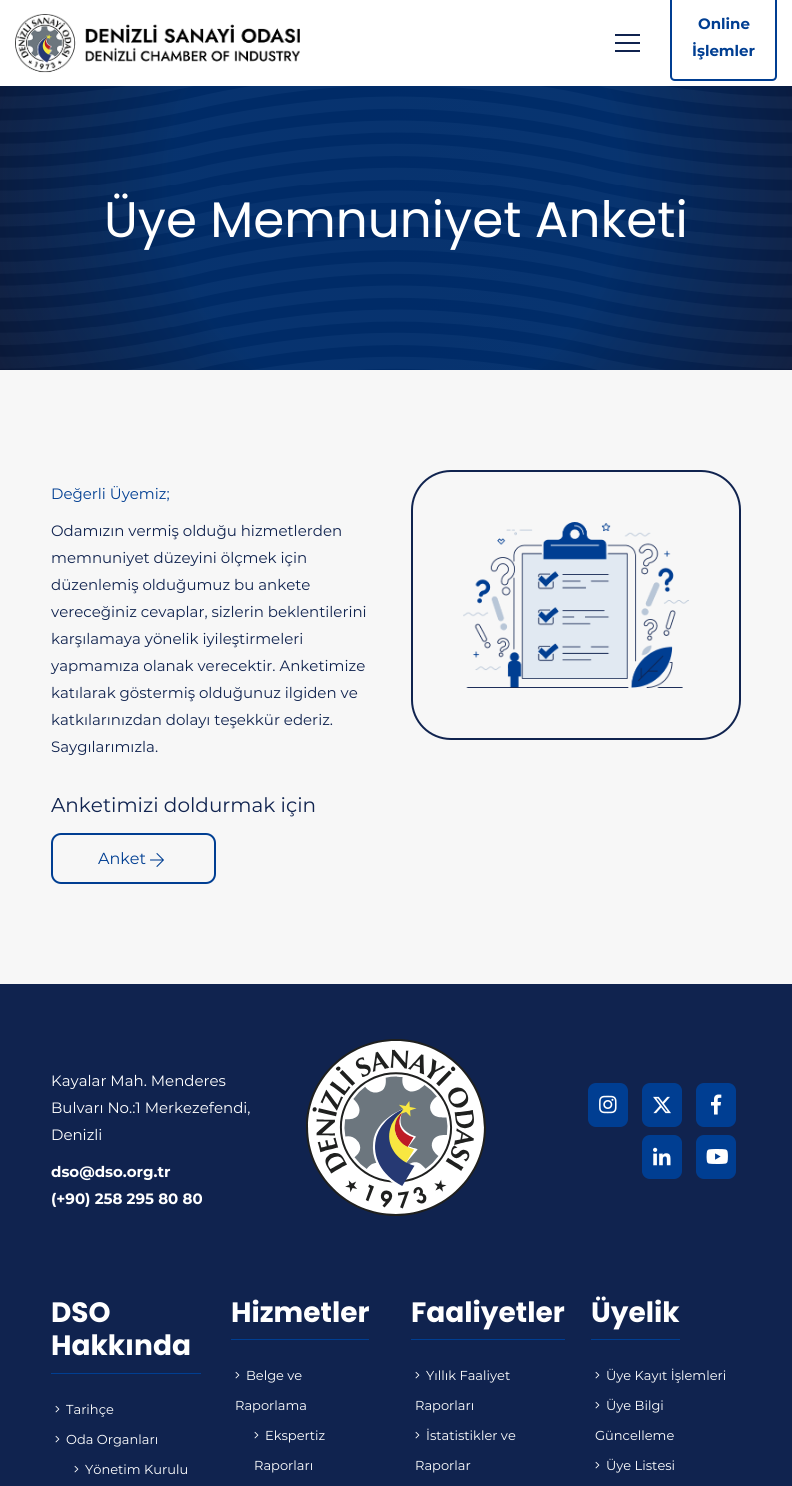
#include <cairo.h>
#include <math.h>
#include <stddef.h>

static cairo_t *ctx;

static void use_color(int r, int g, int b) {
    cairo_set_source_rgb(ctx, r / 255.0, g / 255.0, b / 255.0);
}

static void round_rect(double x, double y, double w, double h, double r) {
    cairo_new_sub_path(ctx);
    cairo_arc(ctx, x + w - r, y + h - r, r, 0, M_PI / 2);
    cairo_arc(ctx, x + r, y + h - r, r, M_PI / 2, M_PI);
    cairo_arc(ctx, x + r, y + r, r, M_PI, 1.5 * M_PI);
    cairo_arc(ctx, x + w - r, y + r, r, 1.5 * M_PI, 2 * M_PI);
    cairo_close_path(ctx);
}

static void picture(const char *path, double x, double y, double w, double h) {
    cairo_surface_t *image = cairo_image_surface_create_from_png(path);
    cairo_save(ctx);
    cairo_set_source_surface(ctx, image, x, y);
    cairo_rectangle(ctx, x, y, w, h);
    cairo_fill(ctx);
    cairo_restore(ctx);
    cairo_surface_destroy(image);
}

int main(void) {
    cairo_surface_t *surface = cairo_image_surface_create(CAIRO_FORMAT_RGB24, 792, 1486);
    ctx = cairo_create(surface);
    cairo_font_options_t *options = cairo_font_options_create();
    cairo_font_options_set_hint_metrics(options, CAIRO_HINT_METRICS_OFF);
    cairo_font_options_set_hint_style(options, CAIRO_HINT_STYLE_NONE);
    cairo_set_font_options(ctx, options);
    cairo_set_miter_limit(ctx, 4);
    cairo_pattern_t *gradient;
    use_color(247, 247, 247);
    cairo_paint(ctx);
    use_color(255, 255, 255);
    cairo_rectangle(ctx, 0, 0, 792, 86);
    cairo_fill(ctx);
    picture("img1.png", 15, 14, 285, 59);
    use_color(16, 35, 79);
    cairo_rectangle(ctx, 615, 34, 25, 2);
    cairo_fill(ctx);
    cairo_rectangle(ctx, 615, 42, 25, 2);
    cairo_fill(ctx);
    cairo_rectangle(ctx, 615, 50, 25, 2);
    cairo_fill(ctx);
    use_color(0, 62, 146);
    cairo_set_fill_rule(ctx, CAIRO_FILL_RULE_EVEN_ODD);
    cairo_new_path(ctx);
    cairo_move_to(ctx, 670, -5);
    cairo_line_to(ctx, 777, -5);
    cairo_line_to(ctx, 777, 76);
    cairo_curve_to(ctx, 777, 79, 775, 81, 772, 81);
    cairo_line_to(ctx, 675, 81);
    cairo_curve_to(ctx, 672, 81, 670, 79, 670, 76);
    cairo_close_path(ctx);
    cairo_move_to(ctx, 672, -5);
    cairo_line_to(ctx, 775, -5);
    cairo_line_to(ctx, 775, 76);
    cairo_curve_to(ctx, 775, 78, 774, 79, 772, 79);
    cairo_line_to(ctx, 675, 79);
    cairo_curve_to(ctx, 673, 79, 672, 78, 672, 76);
    cairo_close_path(ctx);
    cairo_fill(ctx);
    cairo_select_font_face(ctx, "Montserrat", CAIRO_FONT_SLANT_NORMAL, CAIRO_FONT_WEIGHT_BOLD);
    cairo_set_font_size(ctx, 15);
    cairo_move_to(ctx, 698, 29);
    cairo_show_text(ctx, "Online");
    cairo_move_to(ctx, 692, 56);
    cairo_show_text(ctx, "İşlemler");
    gradient = cairo_pattern_create_radial(396, 185, 0, 396, 185, 437);
    cairo_pattern_add_color_stop_rgba(gradient, 0, 0, 0.243, 0.573, 1);
    cairo_pattern_add_color_stop_rgba(gradient, 0.51, 0, 0.243, 0.573, 1);
    cairo_pattern_add_color_stop_rgba(gradient, 1, 0.063, 0.137, 0.31, 1);
    cairo_set_source(ctx, gradient);
    cairo_pattern_destroy(gradient);
    cairo_rectangle(ctx, 0, 86, 792, 284);
    cairo_fill(ctx);
    picture("img2.png", 0, 86, 792, 284);
    cairo_select_font_face(ctx, "Poppins", CAIRO_FONT_SLANT_NORMAL, CAIRO_FONT_WEIGHT_NORMAL);
    cairo_set_font_size(ctx, 50);
    use_color(255, 255, 255);
    cairo_move_to(ctx, 104, 237);
    cairo_show_text(ctx, "Üye Memnuniyet Anketi");
    cairo_select_font_face(ctx, "Montserrat", CAIRO_FONT_SLANT_NORMAL, CAIRO_FONT_WEIGHT_NORMAL);
    cairo_set_font_size(ctx, 15);
    use_color(0, 62, 146);
    cairo_move_to(ctx, 51, 499);
    cairo_show_text(ctx, "Değerli Üyemiz;");
    use_color(16, 35, 79);
    cairo_move_to(ctx, 51, 536);
    cairo_show_text(ctx, "Odamızın vermiş olduğu hizmetlerden");
    cairo_move_to(ctx, 51, 563);
    cairo_show_text(ctx, "memnuniyet düzeyini ölçmek için");
    cairo_move_to(ctx, 51, 590);
    cairo_show_text(ctx, "düzenlemiş olduğumuz bu ankete");
    cairo_move_to(ctx, 51, 617);
    cairo_show_text(ctx, "vereceğiniz cevaplar, sizlerin beklentilerini");
    cairo_move_to(ctx, 51, 644);
    cairo_show_text(ctx, "karşılamaya yönelik iyileştirmeleri");
    cairo_move_to(ctx, 51, 671);
    cairo_show_text(ctx, "yapmamıza olanak verecektir. Anketimize");
    cairo_move_to(ctx, 51, 698);
    cairo_show_text(ctx, "katılarak göstermiş olduğunuz ilgiden ve");
    cairo_move_to(ctx, 51, 725);
    cairo_show_text(ctx, "katkılarınızdan dolayı teşekkür ederiz.");
    cairo_move_to(ctx, 51, 752);
    cairo_show_text(ctx, "Saygılarımızla.");
    cairo_set_font_size(ctx, 20);
    cairo_move_to(ctx, 51, 812);
    cairo_show_text(ctx, "Anketimizi doldurmak için");
    round_rect(52, 834, 163, 49, 9);
    use_color(0, 62, 146);
    cairo_stroke(ctx);
    cairo_set_font_size(ctx, 16);
    cairo_move_to(ctx, 98, 864);
    cairo_show_text(ctx, "Anket");
    picture("img3.png", 150, 853, 14, 14);
    round_rect(412, 471, 328, 268, 39);
    use_color(16, 35, 79);
    cairo_stroke(ctx);
    picture("img4.png", 463, 522, 226, 166);
    cairo_rectangle(ctx, 0, 984, 792, 502);
    cairo_fill(ctx);
    cairo_set_font_size(ctx, 15);
    use_color(255, 255, 255);
    cairo_move_to(ctx, 51, 1086);
    cairo_show_text(ctx, "Kayalar Mah. Menderes");
    cairo_move_to(ctx, 51, 1113);
    cairo_show_text(ctx, "Bulvarı No.:1 Merkezefendi,");
    cairo_move_to(ctx, 51, 1140);
    cairo_show_text(ctx, "Denizli");
    cairo_select_font_face(ctx, "Montserrat", CAIRO_FONT_SLANT_NORMAL, CAIRO_FONT_WEIGHT_BOLD);
    cairo_move_to(ctx, 51, 1177);
    cairo_show_text(ctx, "dso@dso.org.tr");
    cairo_move_to(ctx, 51, 1204);
    cairo_show_text(ctx, "(+90) 258 295 80 80");
    picture("img5.png", 306, 1039, 180, 177);
    use_color(0, 62, 146);
    round_rect(588, 1083, 40, 44, 8);
    cairo_fill(ctx);
    picture("img6.png", 599, 1095, 18, 19);
    round_rect(642, 1083, 40, 44, 8);
    cairo_fill(ctx);
    picture("img7.png", 653, 1096, 18, 18);
    round_rect(696, 1083, 40, 44, 8);
    cairo_fill(ctx);
    picture("img8.png", 711, 1094, 11, 21);
    round_rect(642, 1135, 40, 44, 8);
    cairo_fill(ctx);
    picture("img9.png", 653, 1147, 18, 19);
    round_rect(696, 1135, 40, 44, 8);
    cairo_fill(ctx);
    picture("img10.png", 706, 1149, 22, 15);
    cairo_select_font_face(ctx, "Poppins", CAIRO_FONT_SLANT_NORMAL, CAIRO_FONT_WEIGHT_BOLD);
    cairo_set_font_size(ctx, 28);
    use_color(255, 255, 255);
    cairo_move_to(ctx, 51, 1322);
    cairo_show_text(ctx, "DSO");
    cairo_move_to(ctx, 51, 1355);
    cairo_show_text(ctx, "Hakkında");
    use_color(0, 62, 146);
    cairo_rectangle(ctx, 51, 1373, 150, 1);
    cairo_fill(ctx);
    picture("img11.png", 55, 1405, 5, 8);
    cairo_select_font_face(ctx, "Montserrat", CAIRO_FONT_SLANT_NORMAL, CAIRO_FONT_WEIGHT_NORMAL);
    cairo_set_font_size(ctx, 13);
    use_color(255, 255, 255);
    cairo_move_to(ctx, 66, 1414);
    cairo_show_text(ctx, "Tarihçe");
    picture("img11.png", 55, 1435, 5, 8);
    cairo_move_to(ctx, 66, 1444);
    cairo_show_text(ctx, "Oda Organları");
    picture("img11.png", 74, 1465, 5, 8);
    cairo_move_to(ctx, 85, 1474);
    cairo_show_text(ctx, "Yönetim Kurulu");
    cairo_select_font_face(ctx, "Poppins", CAIRO_FONT_SLANT_NORMAL, CAIRO_FONT_WEIGHT_BOLD);
    cairo_set_font_size(ctx, 28);
    cairo_move_to(ctx, 231, 1322);
    cairo_show_text(ctx, "Hizmetler");
    use_color(0, 62, 146);
    cairo_rectangle(ctx, 231, 1339, 138, 1);
    cairo_fill(ctx);
    picture("img11.png", 235, 1371, 5, 8);
    cairo_select_font_face(ctx, "Montserrat", CAIRO_FONT_SLANT_NORMAL, CAIRO_FONT_WEIGHT_NORMAL);
    cairo_set_font_size(ctx, 13);
    use_color(255, 255, 255);
    cairo_move_to(ctx, 246, 1380);
    cairo_show_text(ctx, "Belge ve");
    cairo_move_to(ctx, 235, 1410);
    cairo_show_text(ctx, "Raporlama");
    picture("img11.png", 254, 1431, 5, 8);
    cairo_move_to(ctx, 265, 1440);
    cairo_show_text(ctx, "Ekspertiz");
    cairo_move_to(ctx, 254, 1470);
    cairo_show_text(ctx, "Raporları");
    cairo_select_font_face(ctx, "Poppins", CAIRO_FONT_SLANT_NORMAL, CAIRO_FONT_WEIGHT_BOLD);
    cairo_set_font_size(ctx, 28);
    cairo_move_to(ctx, 411, 1322);
    cairo_show_text(ctx, "Faaliyetler");
    use_color(0, 62, 146);
    cairo_rectangle(ctx, 411, 1339, 154, 1);
    cairo_fill(ctx);
    picture("img11.png", 415, 1371, 5, 8);
    cairo_select_font_face(ctx, "Montserrat", CAIRO_FONT_SLANT_NORMAL, CAIRO_FONT_WEIGHT_NORMAL);
    cairo_set_font_size(ctx, 13);
    use_color(255, 255, 255);
    cairo_move_to(ctx, 426, 1380);
    cairo_show_text(ctx, "Yıllık Faaliyet");
    cairo_move_to(ctx, 415, 1410);
    cairo_show_text(ctx, "Raporları");
    picture("img11.png", 415, 1431, 5, 8);
    cairo_move_to(ctx, 426, 1440);
    cairo_show_text(ctx, "İstatistikler ve");
    cairo_move_to(ctx, 415, 1470);
    cairo_show_text(ctx, "Raporlar");
    cairo_select_font_face(ctx, "Poppins", CAIRO_FONT_SLANT_NORMAL, CAIRO_FONT_WEIGHT_BOLD);
    cairo_set_font_size(ctx, 28);
    cairo_move_to(ctx, 591, 1322);
    cairo_show_text(ctx, "Üyelik");
    use_color(0, 62, 146);
    cairo_rectangle(ctx, 591, 1339, 89, 1);
    cairo_fill(ctx);
    picture("img11.png", 595, 1371, 5, 8);
    cairo_select_font_face(ctx, "Montserrat", CAIRO_FONT_SLANT_NORMAL, CAIRO_FONT_WEIGHT_NORMAL);
    cairo_set_font_size(ctx, 13);
    use_color(255, 255, 255);
    cairo_move_to(ctx, 606, 1380);
    cairo_show_text(ctx, "Üye Kayıt İşlemleri");
    picture("img11.png", 595, 1401, 5, 8);
    cairo_move_to(ctx, 606, 1410);
    cairo_show_text(ctx, "Üye Bilgi");
    cairo_move_to(ctx, 595, 1440);
    cairo_show_text(ctx, "Güncelleme");
    picture("img11.png", 595, 1461, 5, 8);
    cairo_move_to(ctx, 606, 1470);
    cairo_show_text(ctx, "Üye Listesi");
    cairo_surface_write_to_png(surface, "result.png");
    cairo_font_options_destroy(options);
    cairo_destroy(ctx);
    cairo_surface_destroy(surface);
    return 0;
}
